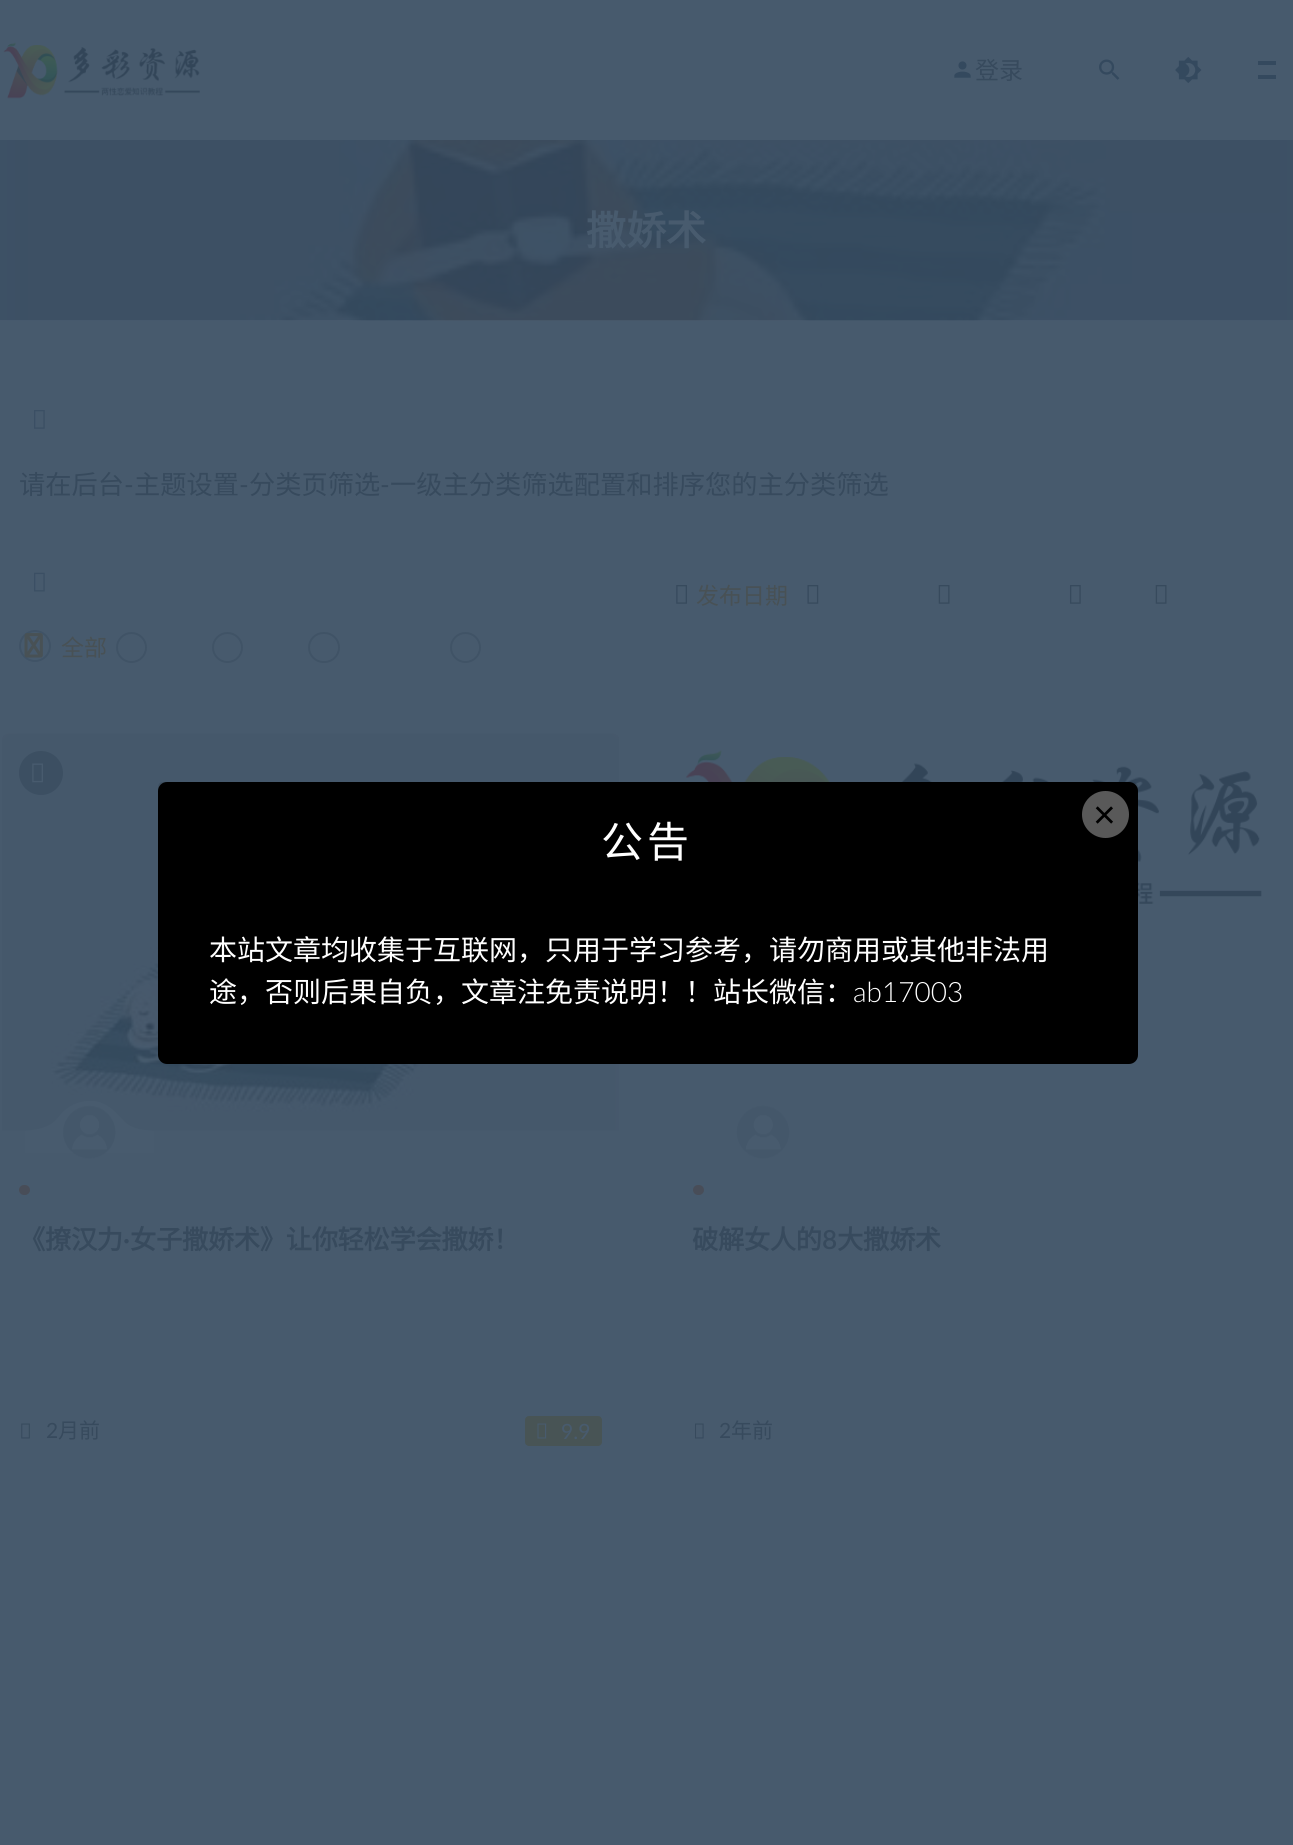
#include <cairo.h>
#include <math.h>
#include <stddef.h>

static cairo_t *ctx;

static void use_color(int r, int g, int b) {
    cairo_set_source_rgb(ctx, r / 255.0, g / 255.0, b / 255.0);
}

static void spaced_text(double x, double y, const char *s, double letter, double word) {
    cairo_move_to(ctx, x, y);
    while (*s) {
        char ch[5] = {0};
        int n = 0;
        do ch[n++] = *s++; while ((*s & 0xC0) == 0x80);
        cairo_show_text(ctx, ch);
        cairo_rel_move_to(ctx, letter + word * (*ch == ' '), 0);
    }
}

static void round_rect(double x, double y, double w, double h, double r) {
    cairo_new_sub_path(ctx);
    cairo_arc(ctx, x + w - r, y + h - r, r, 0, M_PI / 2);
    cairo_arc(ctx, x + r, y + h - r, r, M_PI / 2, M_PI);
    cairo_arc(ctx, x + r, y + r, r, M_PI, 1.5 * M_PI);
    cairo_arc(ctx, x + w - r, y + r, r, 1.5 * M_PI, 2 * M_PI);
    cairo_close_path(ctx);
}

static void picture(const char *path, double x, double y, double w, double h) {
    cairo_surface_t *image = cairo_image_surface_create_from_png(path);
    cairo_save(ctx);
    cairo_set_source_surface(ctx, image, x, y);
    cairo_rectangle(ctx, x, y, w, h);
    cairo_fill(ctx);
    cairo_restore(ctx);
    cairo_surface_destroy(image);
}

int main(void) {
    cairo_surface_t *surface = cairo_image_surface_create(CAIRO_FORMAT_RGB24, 1293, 1845);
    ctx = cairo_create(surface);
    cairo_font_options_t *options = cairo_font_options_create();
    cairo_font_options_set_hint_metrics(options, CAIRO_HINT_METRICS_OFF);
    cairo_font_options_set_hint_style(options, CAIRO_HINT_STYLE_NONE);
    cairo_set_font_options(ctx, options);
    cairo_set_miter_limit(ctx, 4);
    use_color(71, 90, 109);
    cairo_paint(ctx);
    picture("img1.png", 3, 42, 197, 57);
    picture("img2.png", 954, 61, 17, 17);
    cairo_select_font_face(ctx, "Noto Sans CJK SC", CAIRO_FONT_SLANT_NORMAL, CAIRO_FONT_WEIGHT_NORMAL);
    cairo_set_font_size(ctx, 24);
    use_color(55, 74, 93);
    cairo_move_to(ctx, 975, 79);
    cairo_show_text(ctx, "登录");
    picture("img3.png", 1099, 59, 21, 21);
    picture("img4.png", 1175, 56, 27, 28);
    use_color(52, 73, 94);
    cairo_rectangle(ctx, 1258, 61, 18, 4);
    cairo_fill(ctx);
    cairo_rectangle(ctx, 1258, 75, 18, 4);
    cairo_fill(ctx);
    picture("img5.png", 0, 140, 1293, 181);
    cairo_select_font_face(ctx, "Noto Sans CJK SC", CAIRO_FONT_SLANT_NORMAL, CAIRO_FONT_WEIGHT_BOLD);
    cairo_set_font_size(ctx, 40);
    use_color(72, 91, 110);
    cairo_move_to(ctx, 586, 245);
    cairo_show_text(ctx, "撒娇术");
    picture("img6.png", 34, 410, 11, 19);
    cairo_select_font_face(ctx, "Noto Sans CJK SC", CAIRO_FONT_SLANT_NORMAL, CAIRO_FONT_WEIGHT_NORMAL);
    cairo_set_font_size(ctx, 26.25);
    use_color(55, 74, 93);
    cairo_move_to(ctx, 19, 494);
    cairo_show_text(ctx, "请在后台");
    cairo_select_font_face(ctx, "Lato", CAIRO_FONT_SLANT_NORMAL, CAIRO_FONT_WEIGHT_NORMAL);
    cairo_move_to(ctx, 124, 494);
    cairo_show_text(ctx, "-");
    cairo_select_font_face(ctx, "Noto Sans CJK SC", CAIRO_FONT_SLANT_NORMAL, CAIRO_FONT_WEIGHT_NORMAL);
    cairo_move_to(ctx, 134, 494);
    cairo_show_text(ctx, "主题设置");
    cairo_select_font_face(ctx, "Lato", CAIRO_FONT_SLANT_NORMAL, CAIRO_FONT_WEIGHT_NORMAL);
    cairo_move_to(ctx, 239, 494);
    cairo_show_text(ctx, "-");
    cairo_select_font_face(ctx, "Noto Sans CJK SC", CAIRO_FONT_SLANT_NORMAL, CAIRO_FONT_WEIGHT_NORMAL);
    cairo_move_to(ctx, 249, 494);
    cairo_show_text(ctx, "分类页筛选");
    cairo_select_font_face(ctx, "Lato", CAIRO_FONT_SLANT_NORMAL, CAIRO_FONT_WEIGHT_NORMAL);
    cairo_move_to(ctx, 380, 494);
    cairo_show_text(ctx, "-");
    cairo_select_font_face(ctx, "Noto Sans CJK SC", CAIRO_FONT_SLANT_NORMAL, CAIRO_FONT_WEIGHT_NORMAL);
    cairo_move_to(ctx, 390, 494);
    cairo_show_text(ctx, "一级主分类筛选配置和排序您的主分类筛选");
    picture("img7.png", 676, 585, 11, 19);
    cairo_set_font_size(ctx, 23);
    use_color(72, 81, 85);
    cairo_move_to(ctx, 696, 604);
    cairo_show_text(ctx, "发布日期");
    picture("img8.png", 807, 585, 12, 19);
    picture("img9.png", 938, 585, 12, 19);
    picture("img10.png", 1069, 585, 12, 19);
    picture("img9.png", 1155, 585, 12, 19);
    picture("img11.png", 34, 572, 11, 20);
    cairo_arc(ctx, 35, 646, 15, 0, 2 * M_PI);
    use_color(64, 83, 102);
    cairo_stroke(ctx);
    picture("img12.png", 24, 633, 19, 25);
    use_color(72, 81, 85);
    cairo_move_to(ctx, 61, 656);
    cairo_show_text(ctx, "全部");
    cairo_new_path(ctx);
    cairo_arc(ctx, 131.5, 647.5, 14.5, 0, 2 * M_PI);
    use_color(64, 83, 102);
    cairo_stroke(ctx);
    cairo_arc(ctx, 227.5, 647.5, 14.5, 0, 2 * M_PI);
    cairo_stroke(ctx);
    round_rect(309, 633, 30, 29, 14.5);
    cairo_stroke(ctx);
    cairo_arc(ctx, 465.5, 647.5, 14.5, 0, 2 * M_PI);
    cairo_stroke(ctx);
    picture("img13.png", 2, 733, 618, 398);
    use_color(60, 79, 98);
    cairo_arc(ctx, 41, 773, 22, 0, 2 * M_PI);
    cairo_fill(ctx);
    picture("img14.png", 32, 763, 11, 20);
    cairo_save(ctx);
    cairo_rectangle(ctx, 2, 1101, 175, 52);
    cairo_clip(ctx);
    use_color(72, 91, 110);
    cairo_new_path(ctx);
    cairo_move_to(ctx, 123, 1120);
    cairo_curve_to(ctx, 115, 1112, 111, 1106, 99, 1102);
    cairo_curve_to(ctx, 95, 1101, 90, 1100, 86, 1101);
    cairo_curve_to(ctx, 78, 1102, 71, 1105, 65, 1110);
    cairo_curve_to(ctx, 59, 1115, 56, 1122, 49, 1125);
    cairo_curve_to(ctx, 42, 1129, 33, 1130, 25, 1131);
    cairo_line_to(ctx, 25, 1153);
    cairo_line_to(ctx, 154, 1153);
    cairo_line_to(ctx, 154, 1131);
    cairo_curve_to(ctx, 142, 1130, 131, 1129, 123, 1120);
    cairo_close_path(ctx);
    cairo_fill(ctx);
    cairo_restore(ctx);
    picture("img15.png", 63, 1105, 53, 54);
    use_color(72, 77, 88);
    round_rect(19, 1185, 11, 10, 5);
    cairo_fill(ctx);
    cairo_select_font_face(ctx, "Noto Sans CJK SC", CAIRO_FONT_SLANT_NORMAL, CAIRO_FONT_WEIGHT_BOLD);
    cairo_set_font_size(ctx, 26.25);
    use_color(55, 74, 93);
    spaced_text(19, 1249, "《撩汉力", -0.3, 0);
    cairo_select_font_face(ctx, "Lato SemiBold", CAIRO_FONT_SLANT_NORMAL, CAIRO_FONT_WEIGHT_NORMAL);
    spaced_text(123, 1249, "·", -0.3, 0);
    cairo_select_font_face(ctx, "Noto Sans CJK SC", CAIRO_FONT_SLANT_NORMAL, CAIRO_FONT_WEIGHT_BOLD);
    spaced_text(130, 1249, "女子撒娇术》让你轻松学会撒娇！", -0.3, 0);
    picture("img16.png", 21, 1423, 9, 16);
    cairo_select_font_face(ctx, "Lato", CAIRO_FONT_SLANT_NORMAL, CAIRO_FONT_WEIGHT_NORMAL);
    cairo_set_font_size(ctx, 21);
    cairo_move_to(ctx, 46, 1438);
    cairo_show_text(ctx, "2");
    cairo_select_font_face(ctx, "Noto Sans CJK SC", CAIRO_FONT_SLANT_NORMAL, CAIRO_FONT_WEIGHT_NORMAL);
    cairo_move_to(ctx, 58, 1438);
    cairo_show_text(ctx, "月前");
    use_color(72, 84, 85);
    round_rect(525, 1416, 77, 30, 4);
    cairo_fill(ctx);
    picture("img17.png", 537, 1423, 10, 16);
    cairo_select_font_face(ctx, "Lato", CAIRO_FONT_SLANT_NORMAL, CAIRO_FONT_WEIGHT_NORMAL);
    use_color(72, 91, 110);
    cairo_move_to(ctx, 561, 1439);
    cairo_show_text(ctx, "9.9");
    picture("img18.png", 686, 750, 576, 154);
    picture("img19.png", 736, 1105, 54, 54);
    use_color(72, 77, 88);
    round_rect(693, 1185, 11, 10, 5);
    cairo_fill(ctx);
    cairo_select_font_face(ctx, "Noto Sans CJK SC", CAIRO_FONT_SLANT_NORMAL, CAIRO_FONT_WEIGHT_BOLD);
    cairo_set_font_size(ctx, 26.25);
    use_color(55, 74, 93);
    spaced_text(692, 1249, "破解女人的", -0.3, 0);
    cairo_select_font_face(ctx, "Lato SemiBold", CAIRO_FONT_SLANT_NORMAL, CAIRO_FONT_WEIGHT_NORMAL);
    spaced_text(822, 1249, "8", -0.3, 0);
    cairo_select_font_face(ctx, "Noto Sans CJK SC", CAIRO_FONT_SLANT_NORMAL, CAIRO_FONT_WEIGHT_BOLD);
    spaced_text(837, 1249, "大撒娇术", -0.3, 0);
    picture("img20.png", 694, 1423, 10, 16);
    cairo_select_font_face(ctx, "Lato", CAIRO_FONT_SLANT_NORMAL, CAIRO_FONT_WEIGHT_NORMAL);
    cairo_set_font_size(ctx, 21);
    cairo_move_to(ctx, 719, 1438);
    cairo_show_text(ctx, "2");
    cairo_select_font_face(ctx, "Noto Sans CJK SC", CAIRO_FONT_SLANT_NORMAL, CAIRO_FONT_WEIGHT_NORMAL);
    cairo_move_to(ctx, 731, 1438);
    cairo_show_text(ctx, "年前");
    use_color(0, 0, 0);
    round_rect(158, 782, 980, 282, 9);
    cairo_fill(ctx);
    cairo_set_source_rgba(ctx, 0, 0, 0, 0.1);
    cairo_new_path(ctx);
    cairo_move_to(ctx, 163, 782);
    cairo_line_to(ctx, 1133, 782);
    cairo_curve_to(ctx, 1136, 782, 1138, 784, 1138, 787);
    cairo_line_to(ctx, 1138, 901);
    cairo_line_to(ctx, 158, 901);
    cairo_line_to(ctx, 158, 787);
    cairo_curve_to(ctx, 158, 784, 160, 782, 163, 782);
    cairo_close_path(ctx);
    cairo_fill(ctx);
    use_color(89, 89, 89);
    cairo_arc(ctx, 1105.5, 814.5, 23.5, 0, 2 * M_PI);
    cairo_fill(ctx);
    cairo_select_font_face(ctx, "Liberation Sans", CAIRO_FONT_SLANT_NORMAL, CAIRO_FONT_WEIGHT_NORMAL);
    cairo_set_font_size(ctx, 39);
    use_color(0, 0, 0);
    cairo_move_to(ctx, 1093, 828);
    cairo_show_text(ctx, "×");
    cairo_select_font_face(ctx, "Noto Sans CJK SC", CAIRO_FONT_SLANT_NORMAL, CAIRO_FONT_WEIGHT_NORMAL);
    cairo_set_font_size(ctx, 42);
    use_color(255, 255, 255);
    spaced_text(601, 857, "公告", 4, 0);
    cairo_set_font_size(ctx, 28);
    cairo_move_to(ctx, 209, 960);
    cairo_show_text(ctx, "本站文章均收集于互联网，只用于学习参考，请勿商用或其他非法用");
    cairo_move_to(ctx, 209, 1002);
    cairo_show_text(ctx, "途，否则后果自负，文章注免责说明！！站长微信：");
    cairo_select_font_face(ctx, "Lato Light", CAIRO_FONT_SLANT_NORMAL, CAIRO_FONT_WEIGHT_NORMAL);
    cairo_move_to(ctx, 853, 1002);
    cairo_show_text(ctx, "ab17003");
    cairo_surface_write_to_png(surface, "result.png");
    cairo_font_options_destroy(options);
    cairo_destroy(ctx);
    cairo_surface_destroy(surface);
    return 0;
}
